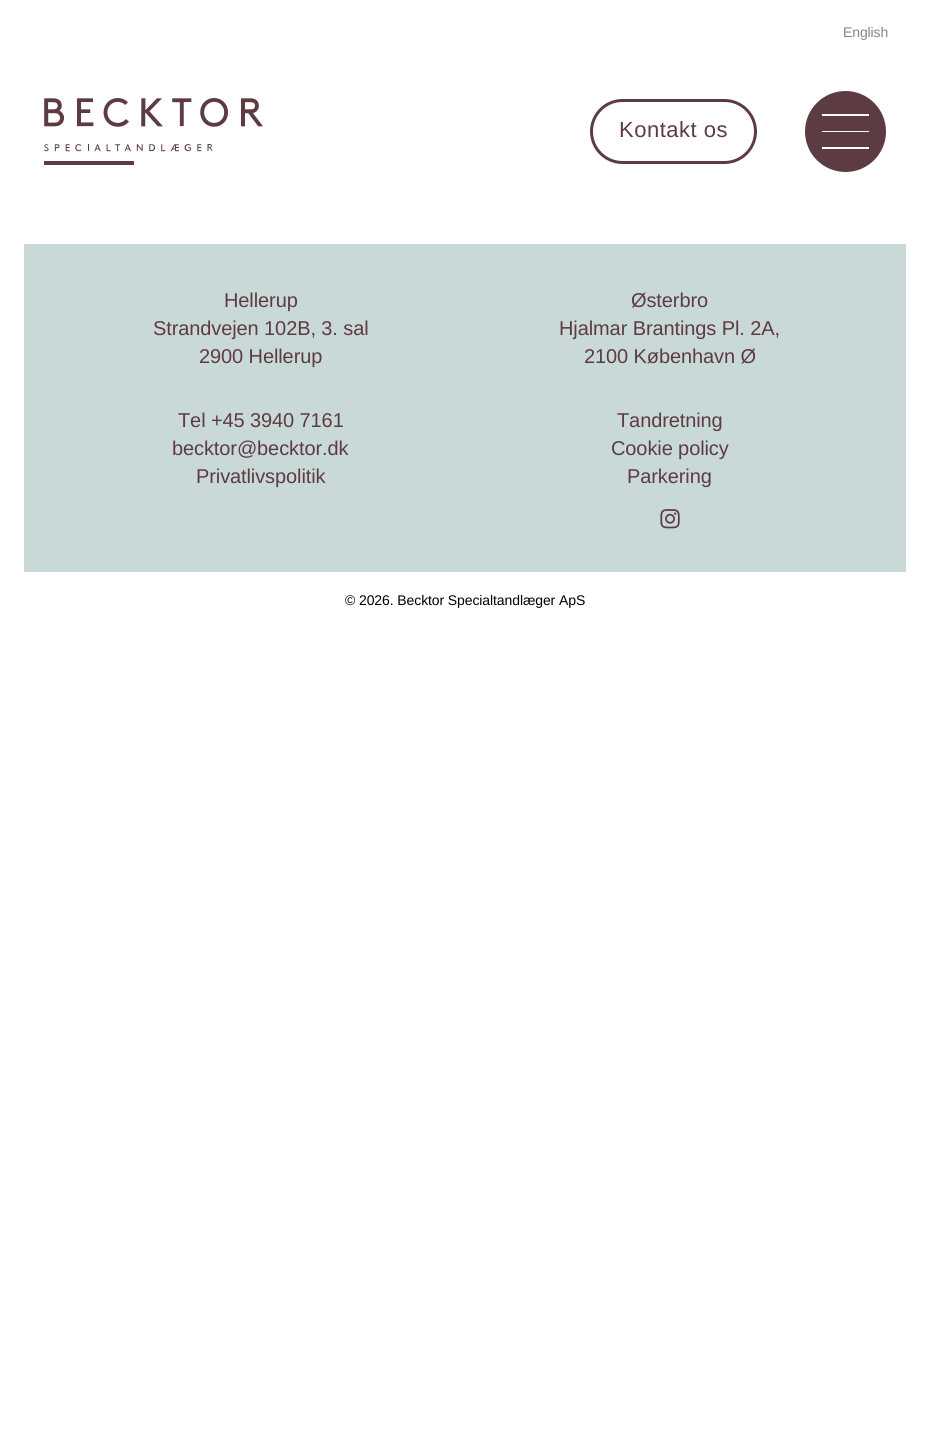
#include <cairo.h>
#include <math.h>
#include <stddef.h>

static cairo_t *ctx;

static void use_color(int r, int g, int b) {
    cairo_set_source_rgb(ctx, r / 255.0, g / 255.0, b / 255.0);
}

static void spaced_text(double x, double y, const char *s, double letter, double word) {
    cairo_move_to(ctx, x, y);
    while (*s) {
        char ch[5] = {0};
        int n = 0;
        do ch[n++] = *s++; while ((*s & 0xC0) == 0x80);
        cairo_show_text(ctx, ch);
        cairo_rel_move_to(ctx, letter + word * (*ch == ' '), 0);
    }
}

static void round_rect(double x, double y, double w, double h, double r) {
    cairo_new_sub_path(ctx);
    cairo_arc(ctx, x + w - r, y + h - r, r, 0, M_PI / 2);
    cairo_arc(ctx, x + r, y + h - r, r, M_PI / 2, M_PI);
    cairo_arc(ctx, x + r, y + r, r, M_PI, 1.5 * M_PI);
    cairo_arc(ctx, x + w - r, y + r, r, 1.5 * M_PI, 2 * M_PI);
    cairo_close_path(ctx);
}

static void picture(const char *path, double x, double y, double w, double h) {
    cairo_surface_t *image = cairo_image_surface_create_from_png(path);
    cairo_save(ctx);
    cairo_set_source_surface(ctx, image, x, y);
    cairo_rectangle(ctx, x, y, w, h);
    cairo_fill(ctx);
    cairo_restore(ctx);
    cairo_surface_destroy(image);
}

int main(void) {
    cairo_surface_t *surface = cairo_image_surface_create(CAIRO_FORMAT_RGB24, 930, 1456);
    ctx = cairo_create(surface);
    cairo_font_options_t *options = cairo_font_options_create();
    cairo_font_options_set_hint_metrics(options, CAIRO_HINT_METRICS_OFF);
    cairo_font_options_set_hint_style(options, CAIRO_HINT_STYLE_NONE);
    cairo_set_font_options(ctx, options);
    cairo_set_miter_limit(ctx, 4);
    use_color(255, 255, 255);
    cairo_paint(ctx);
    cairo_select_font_face(ctx, "Liberation Sans", CAIRO_FONT_SLANT_NORMAL, CAIRO_FONT_WEIGHT_NORMAL);
    cairo_set_font_size(ctx, 14);
    use_color(141, 128, 137);
    spaced_text(843, 37, "English", -0.1, 0);
    picture("img1.png", 44, 98, 219, 67);
    round_rect(591.5, 100.5, 164, 62, 31);
    use_color(93, 59, 66);
    cairo_set_line_width(ctx, 3);
    cairo_stroke(ctx);
    cairo_set_font_size(ctx, 22);
    spaced_text(619, 137, "Kontakt os", 0.5, 0);
    cairo_new_path(ctx);
    cairo_arc(ctx, 845.5, 131.5, 40.5, 0, 2 * M_PI);
    cairo_fill(ctx);
    use_color(255, 255, 255);
    cairo_rectangle(ctx, 822, 114, 47, 2);
    cairo_fill(ctx);
    cairo_rectangle(ctx, 822, 131, 47, 1);
    cairo_fill(ctx);
    cairo_rectangle(ctx, 822, 147, 47, 2);
    cairo_fill(ctx);
    use_color(201, 217, 216);
    cairo_rectangle(ctx, 24, 244, 882, 328);
    cairo_fill(ctx);
    cairo_set_font_size(ctx, 20);
    use_color(93, 59, 66);
    spaced_text(224, 307, "Hellerup", -0.1, 0);
    spaced_text(153, 335, "Strandvejen 102B, 3. sal", -0.1, 0);
    spaced_text(199, 363, "2900 Hellerup", -0.1, 0);
    spaced_text(631, 307, "Østerbro", -0.1, 0);
    spaced_text(559, 335, "Hjalmar Brantings Pl. 2A,", -0.1, 0);
    spaced_text(584, 363, "2100 København Ø", -0.1, 0);
    spaced_text(178, 427, "Tel +45 3940 7161", -0.1, 0);
    spaced_text(172, 455, "becktor@becktor.dk", -0.1, 0);
    spaced_text(196, 483, "Privatlivspolitik", -0.1, 0);
    spaced_text(617, 427, "Tandretning", -0.1, 0);
    spaced_text(611, 455, "Cookie policy", -0.1, 0);
    spaced_text(627, 483, "Parkering", -0.1, 0);
    picture("img2.png", 660, 509, 20, 20);
    cairo_set_font_size(ctx, 14);
    use_color(0, 0, 0);
    spaced_text(345, 605, "© 2026. Becktor Specialtandlæger ApS", -0.1, 0);
    cairo_surface_write_to_png(surface, "result.png");
    cairo_font_options_destroy(options);
    cairo_destroy(ctx);
    cairo_surface_destroy(surface);
    return 0;
}
